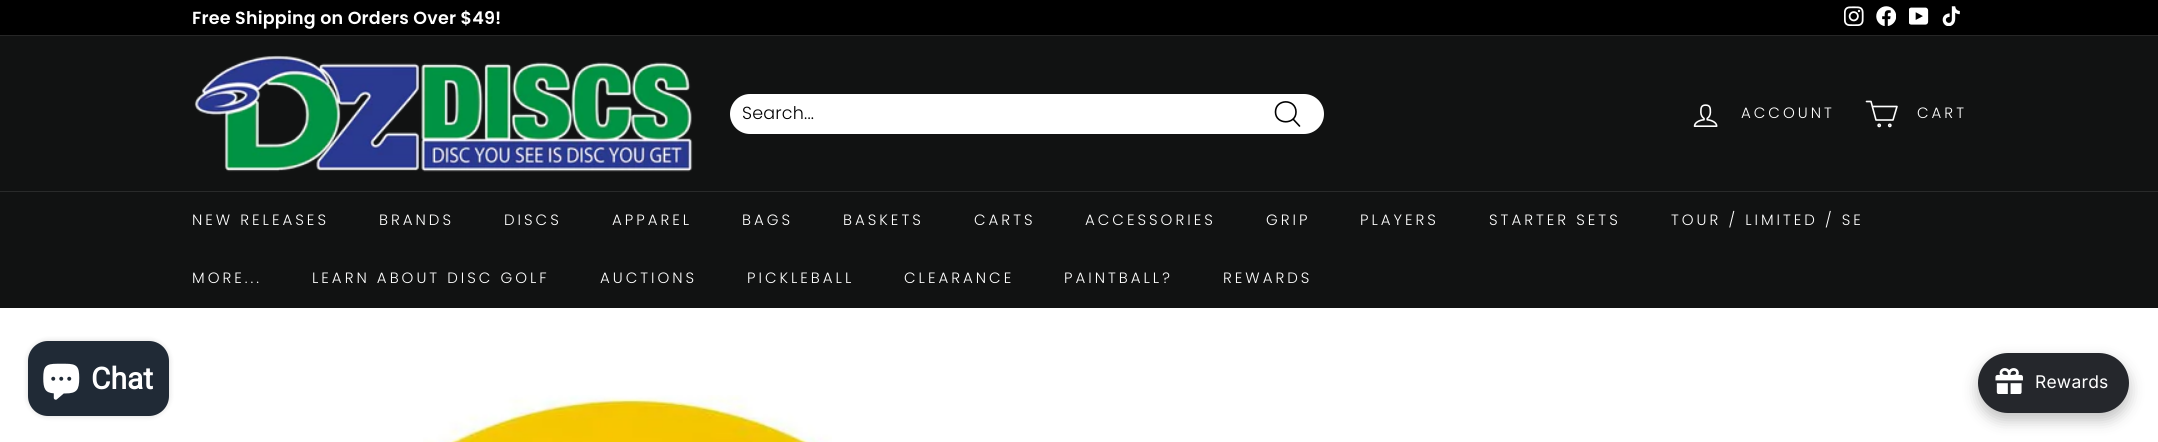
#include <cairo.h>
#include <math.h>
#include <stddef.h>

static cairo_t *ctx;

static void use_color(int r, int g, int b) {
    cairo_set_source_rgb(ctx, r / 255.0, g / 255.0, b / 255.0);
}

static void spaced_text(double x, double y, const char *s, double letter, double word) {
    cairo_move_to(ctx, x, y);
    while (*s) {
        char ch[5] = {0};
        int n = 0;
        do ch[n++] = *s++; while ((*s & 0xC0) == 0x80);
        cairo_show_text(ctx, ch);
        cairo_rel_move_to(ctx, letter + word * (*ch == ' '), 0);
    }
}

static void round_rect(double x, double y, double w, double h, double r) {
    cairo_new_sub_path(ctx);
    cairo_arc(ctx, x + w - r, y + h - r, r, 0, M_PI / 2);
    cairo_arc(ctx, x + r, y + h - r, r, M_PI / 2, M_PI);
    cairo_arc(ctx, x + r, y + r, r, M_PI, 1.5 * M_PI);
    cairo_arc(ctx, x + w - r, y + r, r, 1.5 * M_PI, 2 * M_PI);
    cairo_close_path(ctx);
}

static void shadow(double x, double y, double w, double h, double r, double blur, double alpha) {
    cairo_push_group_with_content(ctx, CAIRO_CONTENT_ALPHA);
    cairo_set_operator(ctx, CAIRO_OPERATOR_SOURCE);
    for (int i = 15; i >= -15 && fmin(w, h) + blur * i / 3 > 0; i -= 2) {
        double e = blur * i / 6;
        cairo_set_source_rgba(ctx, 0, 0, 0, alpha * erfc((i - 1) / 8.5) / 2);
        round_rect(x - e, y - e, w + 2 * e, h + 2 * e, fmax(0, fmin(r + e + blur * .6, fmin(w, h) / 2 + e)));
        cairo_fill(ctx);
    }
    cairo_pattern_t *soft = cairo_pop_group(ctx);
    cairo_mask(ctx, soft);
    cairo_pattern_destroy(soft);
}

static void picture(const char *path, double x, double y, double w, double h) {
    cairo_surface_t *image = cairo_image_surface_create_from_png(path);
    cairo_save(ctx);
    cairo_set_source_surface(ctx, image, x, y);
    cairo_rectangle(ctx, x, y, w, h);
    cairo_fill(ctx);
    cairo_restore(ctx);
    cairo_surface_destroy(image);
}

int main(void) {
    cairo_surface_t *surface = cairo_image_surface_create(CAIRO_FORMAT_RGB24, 2158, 442);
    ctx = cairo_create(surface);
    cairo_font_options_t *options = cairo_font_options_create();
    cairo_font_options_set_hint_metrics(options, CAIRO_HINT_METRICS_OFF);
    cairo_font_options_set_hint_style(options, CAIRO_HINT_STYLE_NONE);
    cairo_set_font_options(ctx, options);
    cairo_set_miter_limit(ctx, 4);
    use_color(255, 255, 255);
    cairo_paint(ctx);
    use_color(0, 0, 0);
    cairo_rectangle(ctx, 0, 0, 2158, 35);
    cairo_fill(ctx);
    cairo_select_font_face(ctx, "Poppins SemiBold", CAIRO_FONT_SLANT_NORMAL, CAIRO_FONT_WEIGHT_NORMAL);
    cairo_set_font_size(ctx, 17.5);
    use_color(255, 255, 255);
    spaced_text(192, 24, "Free Shipping on Orders Over $49!", 0.2, 0);
    picture("img1.png", 1844, 6, 20, 20);
    picture("img2.png", 1876, 6, 20, 20);
    picture("img3.png", 1909, 7, 20, 18);
    picture("img4.png", 1942, 6, 18, 20);
    use_color(38, 38, 38);
    cairo_rectangle(ctx, 0, 35, 2158, 1);
    cairo_fill(ctx);
    use_color(17, 18, 18);
    cairo_rectangle(ctx, 0, 36, 2158, 155);
    cairo_fill(ctx);
    picture("img5.png", 194, 55, 499, 117);
    use_color(255, 255, 255);
    round_rect(730, 94, 594, 40, 20);
    cairo_fill(ctx);
    cairo_select_font_face(ctx, "Poppins Light", CAIRO_FONT_SLANT_NORMAL, CAIRO_FONT_WEIGHT_NORMAL);
    use_color(0, 0, 0);
    spaced_text(742, 119, "Search...", 0.2, 0);
    cairo_new_path(ctx);
    cairo_move_to(ctx, 1296, 112);
    cairo_curve_to(ctx, 1296, 125, 1275.5, 125, 1275.5, 112);
    cairo_curve_to(ctx, 1275.5, 98.5, 1296, 98.5, 1296, 112);
    cairo_close_path(ctx);
    cairo_move_to(ctx, 1299.5, 126);
    cairo_line_to(ctx, 1293, 119);
    cairo_set_line_width(ctx, 1.6);
    cairo_set_line_cap(ctx, CAIRO_LINE_CAP_ROUND);
    cairo_set_line_join(ctx, CAIRO_LINE_JOIN_ROUND);
    cairo_stroke(ctx);
    picture("img6.png", 1693, 104, 25, 23);
    cairo_set_font_size(ctx, 15);
    use_color(255, 255, 255);
    spaced_text(1741, 118, "ACCOUNT", 3, 0);
    cairo_new_path(ctx);
    cairo_move_to(ctx, 1872.5, 106.5);
    cairo_line_to(ctx, 1897, 106.5);
    cairo_line_to(ctx, 1893, 120);
    cairo_line_to(ctx, 1876, 120);
    cairo_line_to(ctx, 1871, 101.5);
    cairo_line_to(ctx, 1866.5, 101.5);
    cairo_stroke(ctx);
    cairo_arc(ctx, 1879.2, 125.4, 1.1, 0, 2 * M_PI);
    cairo_set_line_cap(ctx, CAIRO_LINE_CAP_BUTT);
    cairo_set_line_join(ctx, CAIRO_LINE_JOIN_MITER);
    cairo_stroke(ctx);
    cairo_arc(ctx, 1889.8, 125.4, 1.1, 0, 2 * M_PI);
    cairo_stroke(ctx);
    spaced_text(1917, 118, "CART", 3, 0);
    use_color(17, 18, 18);
    cairo_new_path(ctx);
    cairo_move_to(ctx, 0, 191);
    cairo_line_to(ctx, 0, 308);
    cairo_line_to(ctx, 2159, 308);
    cairo_line_to(ctx, 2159, 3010);
    cairo_line_to(ctx, 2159, 191);
    cairo_close_path(ctx);
    cairo_fill(ctx);
    use_color(41, 42, 42);
    cairo_rectangle(ctx, 0, 191, 2158, 1);
    cairo_fill(ctx);
    use_color(255, 255, 255);
    spaced_text(192, 225, "NEW RELEASES", 3, 0);
    spaced_text(379, 225, "BRANDS", 3, 0);
    spaced_text(504, 225, "DISCS", 3, 0);
    spaced_text(612, 225, "APPAREL", 3, 0);
    spaced_text(742, 225, "BAGS", 3, 0);
    spaced_text(843, 225, "BASKETS", 3, 0);
    spaced_text(974, 225, "CARTS", 3, 0);
    spaced_text(1085, 225, "ACCESSORIES", 3, 0);
    spaced_text(1266, 225, "GRIP", 3, 0);
    spaced_text(1360, 225, "PLAYERS", 3, 0);
    spaced_text(1489, 225, "STARTER SETS", 3, 0);
    spaced_text(1671, 225, "TOUR / LIMITED / SE", 3, 0);
    spaced_text(192, 283, "MORE...", 3, 0);
    spaced_text(312, 283, "LEARN ABOUT DISC GOLF", 3, 0);
    spaced_text(600, 283, "AUCTIONS", 3, 0);
    spaced_text(747, 283, "PICKLEBALL", 3, 0);
    spaced_text(904, 283, "CLEARANCE", 3, 0);
    spaced_text(1064, 283, "PAINTBALL?", 3, 0);
    spaced_text(1223, 283, "REWARDS", 3, 0);
    picture("img7.png", 423, 395, 409, 47);
    use_color(0, 0, 0);
    shadow(28, 341, 141, 75, 20, 3, 0.15);
    use_color(32, 42, 54);
    round_rect(28, 341, 141, 75, 20);
    cairo_fill(ctx);
    picture("img8.png", 43, 363, 37, 37);
    cairo_select_font_face(ctx, "Roboto", CAIRO_FONT_SLANT_NORMAL, CAIRO_FONT_WEIGHT_BOLD);
    cairo_set_font_size(ctx, 30);
    use_color(255, 255, 255);
    cairo_move_to(ctx, 91, 389);
    cairo_show_text(ctx, "Chat");
    use_color(0, 0, 0);
    shadow(1978, 360, 151, 60, 30, 7.5, 0.25);
    use_color(37, 39, 44);
    round_rect(1978, 353, 151, 60, 30);
    cairo_fill(ctx);
    picture("img9.png", 1995, 368, 28, 26);
    cairo_select_font_face(ctx, "Inter", CAIRO_FONT_SLANT_NORMAL, CAIRO_FONT_WEIGHT_NORMAL);
    cairo_set_font_size(ctx, 17.5);
    use_color(255, 255, 255);
    spaced_text(2035, 388, "Rewards", 0.2, 0);
    cairo_surface_write_to_png(surface, "result.png");
    cairo_font_options_destroy(options);
    cairo_destroy(ctx);
    cairo_surface_destroy(surface);
    return 0;
}
